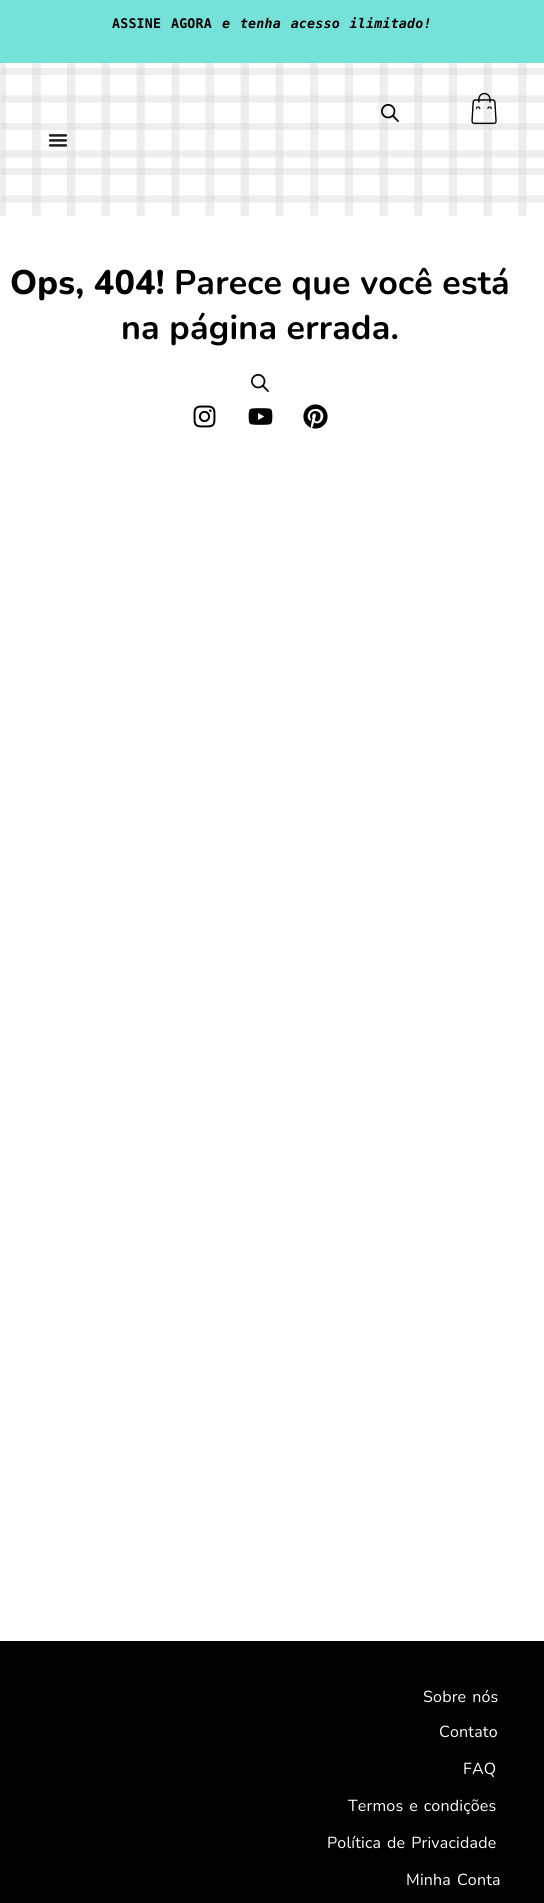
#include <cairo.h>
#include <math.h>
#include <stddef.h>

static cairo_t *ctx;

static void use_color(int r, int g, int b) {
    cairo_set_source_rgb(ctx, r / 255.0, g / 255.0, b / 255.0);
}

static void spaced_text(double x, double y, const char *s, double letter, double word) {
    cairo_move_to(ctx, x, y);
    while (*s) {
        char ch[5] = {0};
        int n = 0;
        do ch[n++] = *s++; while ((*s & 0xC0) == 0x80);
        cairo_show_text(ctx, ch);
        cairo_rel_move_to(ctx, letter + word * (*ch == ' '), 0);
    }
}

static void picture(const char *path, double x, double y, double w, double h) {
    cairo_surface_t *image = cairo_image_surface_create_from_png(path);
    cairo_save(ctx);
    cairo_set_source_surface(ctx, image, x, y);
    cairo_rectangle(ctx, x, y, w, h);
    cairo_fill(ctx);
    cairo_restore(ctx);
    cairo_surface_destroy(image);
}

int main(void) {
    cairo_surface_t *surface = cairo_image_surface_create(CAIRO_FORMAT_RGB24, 544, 1903);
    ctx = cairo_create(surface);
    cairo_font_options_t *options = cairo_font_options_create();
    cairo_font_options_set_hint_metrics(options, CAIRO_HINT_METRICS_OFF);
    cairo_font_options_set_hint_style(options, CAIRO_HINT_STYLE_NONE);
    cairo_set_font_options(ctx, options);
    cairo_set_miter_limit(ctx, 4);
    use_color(255, 255, 255);
    cairo_paint(ctx);
    use_color(117, 225, 216);
    cairo_rectangle(ctx, 0, 0, 544, 63);
    cairo_fill(ctx);
    cairo_select_font_face(ctx, "DejaVu Sans Mono", CAIRO_FONT_SLANT_NORMAL, CAIRO_FONT_WEIGHT_BOLD);
    cairo_set_font_size(ctx, 13.3);
    use_color(0, 0, 0);
    spaced_text(112, 28, "ASSINE AGORA", 0.2, 1.5);
    cairo_select_font_face(ctx, "DejaVu Sans Mono", CAIRO_FONT_SLANT_ITALIC, CAIRO_FONT_WEIGHT_BOLD);
    spaced_text(222, 28, "e tenha acesso ilimitado!", 0.2, 1.5);
    picture("img1.png", 0, 63, 544, 153);
    picture("img2.png", 381, 104, 18, 18);
    picture("img3.png", 471, 92, 26, 33);
    picture("img4.png", 48, 134, 20, 13);
    cairo_select_font_face(ctx, "Nunito ExtraBold", CAIRO_FONT_SLANT_NORMAL, CAIRO_FONT_WEIGHT_NORMAL);
    cairo_set_font_size(ctx, 34);
    spaced_text(10, 294, "Ops, 404!", 0.2, 0);
    cairo_select_font_face(ctx, "Nunito", CAIRO_FONT_SLANT_NORMAL, CAIRO_FONT_WEIGHT_BOLD);
    spaced_text(174, 294, "Parece que você está", 0.2, 0);
    spaced_text(121, 339, "na página errada.", 0.2, 0);
    picture("img5.png", 251, 374, 18, 18);
    picture("img6.png", 193, 405, 23, 23);
    picture("img7.png", 248, 408, 25, 17);
    picture("img8.png", 303, 404, 25, 25);
    cairo_rectangle(ctx, 0, 1641, 544, 262);
    cairo_fill(ctx);
    cairo_select_font_face(ctx, "Nunito", CAIRO_FONT_SLANT_NORMAL, CAIRO_FONT_WEIGHT_NORMAL);
    cairo_set_font_size(ctx, 16);
    use_color(255, 255, 255);
    spaced_text(423, 1702, "Sobre nós", 0.2, 1.5);
    spaced_text(439, 1737, "Contato", 0.2, 0);
    spaced_text(463, 1774, "FAQ", 0.2, 0);
    spaced_text(348, 1811, "Termos e condições", 0.2, 1.5);
    spaced_text(327, 1848, "Política de Privacidade", 0.2, 1.5);
    spaced_text(406, 1885, "Minha Conta", 0.2, 1.5);
    cairo_surface_write_to_png(surface, "result.png");
    cairo_font_options_destroy(options);
    cairo_destroy(ctx);
    cairo_surface_destroy(surface);
    return 0;
}
